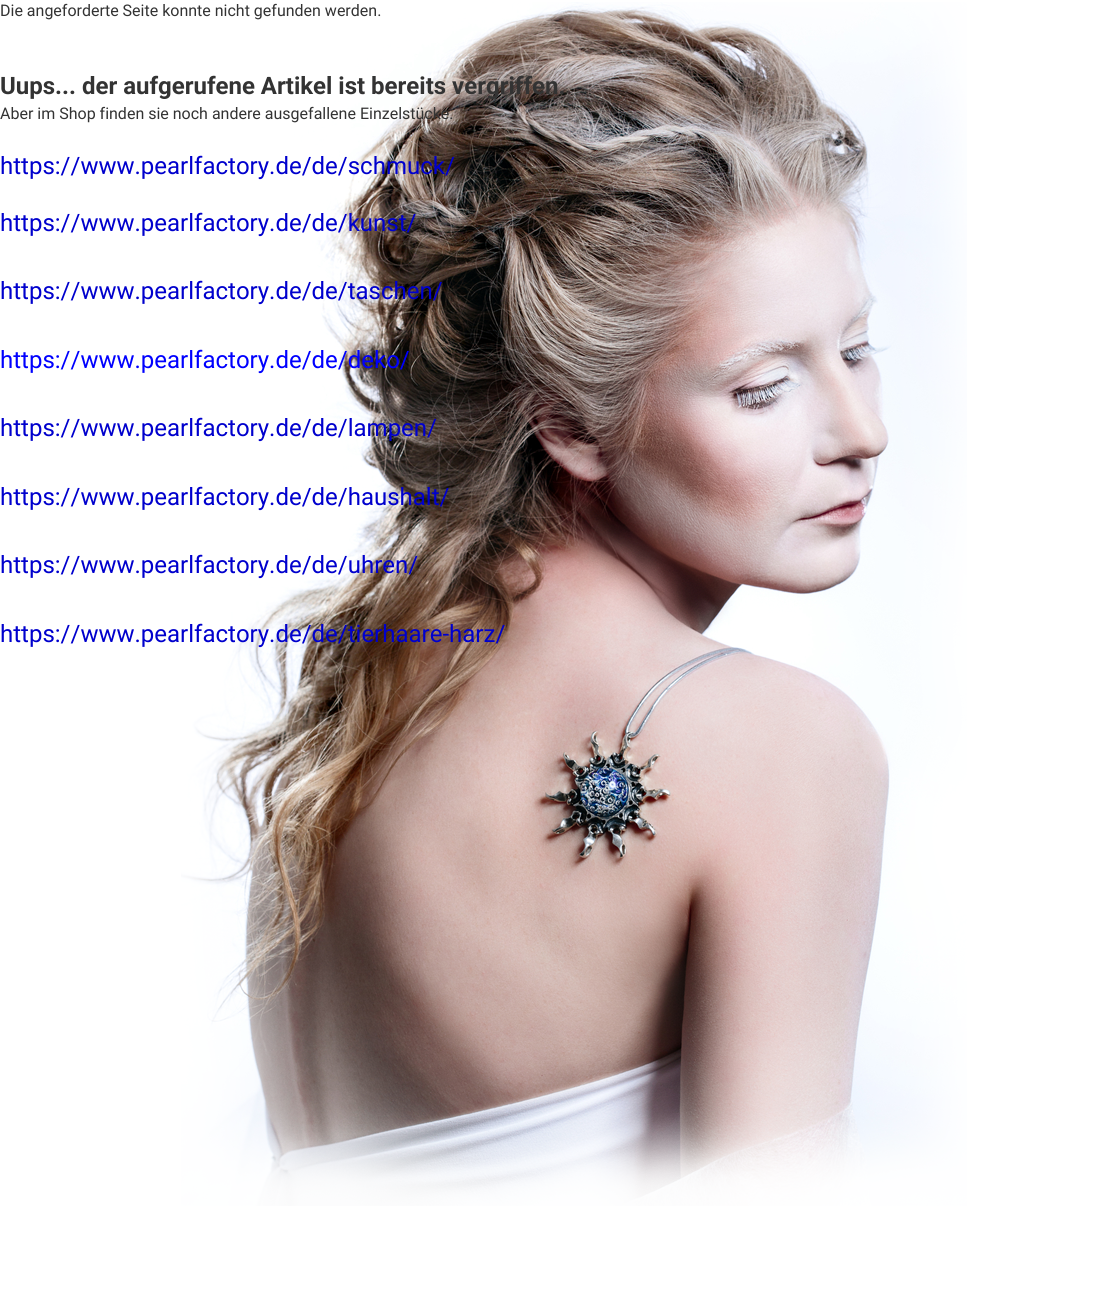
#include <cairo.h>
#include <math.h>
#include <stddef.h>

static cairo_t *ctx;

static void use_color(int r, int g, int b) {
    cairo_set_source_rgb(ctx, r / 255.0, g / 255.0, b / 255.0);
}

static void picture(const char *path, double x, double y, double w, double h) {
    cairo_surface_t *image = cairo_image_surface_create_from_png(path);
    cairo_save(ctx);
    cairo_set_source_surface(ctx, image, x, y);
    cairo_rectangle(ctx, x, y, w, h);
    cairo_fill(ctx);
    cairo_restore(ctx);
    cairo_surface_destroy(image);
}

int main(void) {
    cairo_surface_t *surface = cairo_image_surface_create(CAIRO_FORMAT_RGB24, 1119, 1312);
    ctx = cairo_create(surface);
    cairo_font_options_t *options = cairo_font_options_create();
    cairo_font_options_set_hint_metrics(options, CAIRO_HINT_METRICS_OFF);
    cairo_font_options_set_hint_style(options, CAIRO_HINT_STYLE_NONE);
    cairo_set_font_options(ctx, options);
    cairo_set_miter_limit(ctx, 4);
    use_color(255, 255, 255);
    cairo_paint(ctx);
    picture("img1.png", 181, 2, 786, 1204);
    cairo_select_font_face(ctx, "Roboto", CAIRO_FONT_SLANT_NORMAL, CAIRO_FONT_WEIGHT_NORMAL);
    cairo_set_font_size(ctx, 16);
    use_color(51, 51, 51);
    cairo_move_to(ctx, 0, 16);
    cairo_show_text(ctx, "Die angeforderte Seite konnte nicht gefunden werden.");
    cairo_select_font_face(ctx, "Roboto", CAIRO_FONT_SLANT_NORMAL, CAIRO_FONT_WEIGHT_BOLD);
    cairo_set_font_size(ctx, 24);
    cairo_move_to(ctx, 0, 94);
    cairo_show_text(ctx, "Uups... der aufgerufene Artikel ist bereits vergriffen.");
    cairo_select_font_face(ctx, "Roboto", CAIRO_FONT_SLANT_NORMAL, CAIRO_FONT_WEIGHT_NORMAL);
    cairo_set_font_size(ctx, 16);
    cairo_move_to(ctx, 0, 119);
    cairo_show_text(ctx, "Aber im Shop finden sie noch andere ausgefallene Einzelstücke.");
    cairo_set_font_size(ctx, 24);
    use_color(0, 0, 205);
    cairo_move_to(ctx, 0, 174);
    cairo_show_text(ctx, "https://www.pearlfactory.de/de/schmuck/");
    cairo_move_to(ctx, 0, 231);
    cairo_show_text(ctx, "https://www.pearlfactory.de/de/kunst/");
    cairo_move_to(ctx, 0, 299);
    cairo_show_text(ctx, "https://www.pearlfactory.de/de/taschen/");
    use_color(0, 0, 255);
    cairo_move_to(ctx, 0, 368);
    cairo_show_text(ctx, "https://www.pearlfactory.de/de/deko/");
    use_color(0, 0, 205);
    cairo_move_to(ctx, 0, 436);
    cairo_show_text(ctx, "https://www.pearlfactory.de/de/lampen/");
    cairo_move_to(ctx, 0, 505);
    cairo_show_text(ctx, "https://www.pearlfactory.de/de/haushalt/");
    cairo_move_to(ctx, 0, 573);
    cairo_show_text(ctx, "https://www.pearlfactory.de/de/uhren/");
    cairo_move_to(ctx, 0, 642);
    cairo_show_text(ctx, "https://www.pearlfactory.de/de/tierhaare-harz/");
    cairo_surface_write_to_png(surface, "result.png");
    cairo_font_options_destroy(options);
    cairo_destroy(ctx);
    cairo_surface_destroy(surface);
    return 0;
}
